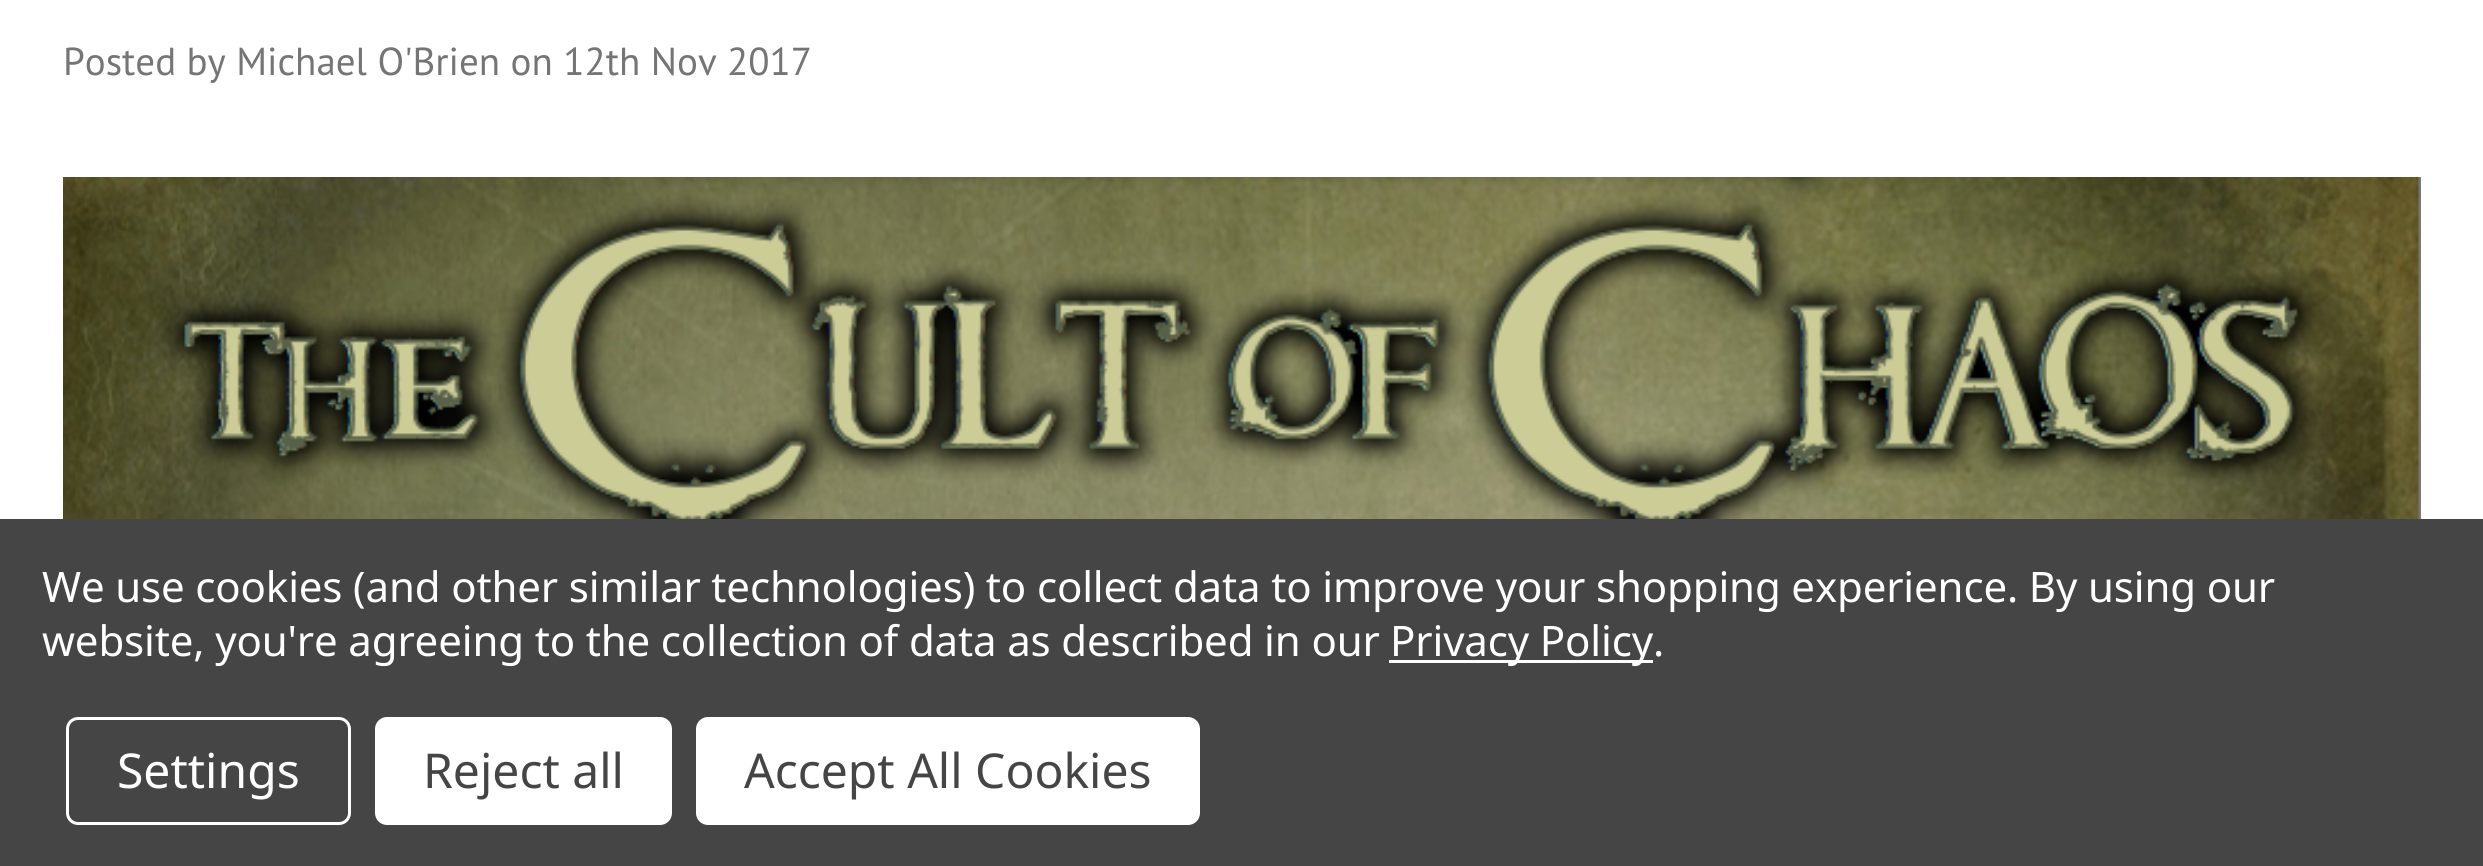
#include <cairo.h>
#include <math.h>
#include <stddef.h>

static cairo_t *ctx;

static void use_color(int r, int g, int b) {
    cairo_set_source_rgb(ctx, r / 255.0, g / 255.0, b / 255.0);
}

static void spaced_text(double x, double y, const char *s, double letter, double word) {
    cairo_move_to(ctx, x, y);
    while (*s) {
        char ch[5] = {0};
        int n = 0;
        do ch[n++] = *s++; while ((*s & 0xC0) == 0x80);
        cairo_show_text(ctx, ch);
        cairo_rel_move_to(ctx, letter + word * (*ch == ' '), 0);
    }
}

static void round_rect(double x, double y, double w, double h, double r) {
    cairo_new_sub_path(ctx);
    cairo_arc(ctx, x + w - r, y + h - r, r, 0, M_PI / 2);
    cairo_arc(ctx, x + r, y + h - r, r, M_PI / 2, M_PI);
    cairo_arc(ctx, x + r, y + r, r, M_PI, 1.5 * M_PI);
    cairo_arc(ctx, x + w - r, y + r, r, 1.5 * M_PI, 2 * M_PI);
    cairo_close_path(ctx);
}

static void picture(const char *path, double x, double y, double w, double h) {
    cairo_surface_t *image = cairo_image_surface_create_from_png(path);
    cairo_save(ctx);
    cairo_set_source_surface(ctx, image, x, y);
    cairo_rectangle(ctx, x, y, w, h);
    cairo_fill(ctx);
    cairo_restore(ctx);
    cairo_surface_destroy(image);
}

int main(void) {
    cairo_surface_t *surface = cairo_image_surface_create(CAIRO_FORMAT_RGB24, 2483, 866);
    ctx = cairo_create(surface);
    cairo_font_options_t *options = cairo_font_options_create();
    cairo_font_options_set_hint_metrics(options, CAIRO_HINT_METRICS_OFF);
    cairo_font_options_set_hint_style(options, CAIRO_HINT_STYLE_NONE);
    cairo_set_font_options(ctx, options);
    cairo_set_miter_limit(ctx, 4);
    use_color(255, 255, 255);
    cairo_paint(ctx);
    cairo_select_font_face(ctx, "PT Sans", CAIRO_FONT_SLANT_NORMAL, CAIRO_FONT_WEIGHT_NORMAL);
    cairo_set_font_size(ctx, 39);
    use_color(117, 117, 117);
    cairo_move_to(ctx, 63, 75);
    cairo_show_text(ctx, "Posted by Michael O'Brien on 12th Nov 2017");
    picture("img1.png", 63, 177, 2358, 342);
    use_color(69, 69, 69);
    cairo_rectangle(ctx, 0, 519, 2483, 347);
    cairo_fill(ctx);
    cairo_select_font_face(ctx, "Noto Sans", CAIRO_FONT_SLANT_NORMAL, CAIRO_FONT_WEIGHT_NORMAL);
    cairo_set_font_size(ctx, 42);
    use_color(255, 255, 255);
    spaced_text(42, 602, "We use cookies (and other similar technologies) to collect data to improve your shopping experience. By using our", -0.15, 0);
    spaced_text(42, 656, "website, you're agreeing to the collection of data as described in our", -0.15, 0);
    cairo_rectangle(ctx, 1389, 660, 264, 3);
    cairo_fill(ctx);
    spaced_text(1390, 656, "Privacy Policy.", -0.15, 0);
    round_rect(67.5, 718.5, 282, 105, 10.5);
    cairo_set_line_width(ctx, 3);
    cairo_stroke(ctx);
    cairo_set_font_size(ctx, 48);
    cairo_move_to(ctx, 117, 788);
    cairo_show_text(ctx, "Settings");
    round_rect(375, 717, 297, 108, 12);
    cairo_fill(ctx);
    use_color(69, 69, 69);
    cairo_move_to(ctx, 423, 788);
    cairo_show_text(ctx, "Reject all");
    use_color(255, 255, 255);
    round_rect(696, 717, 504, 108, 12);
    cairo_fill(ctx);
    use_color(69, 69, 69);
    cairo_move_to(ctx, 744, 788);
    cairo_show_text(ctx, "Accept All Cookies");
    cairo_surface_write_to_png(surface, "result.png");
    cairo_font_options_destroy(options);
    cairo_destroy(ctx);
    cairo_surface_destroy(surface);
    return 0;
}
